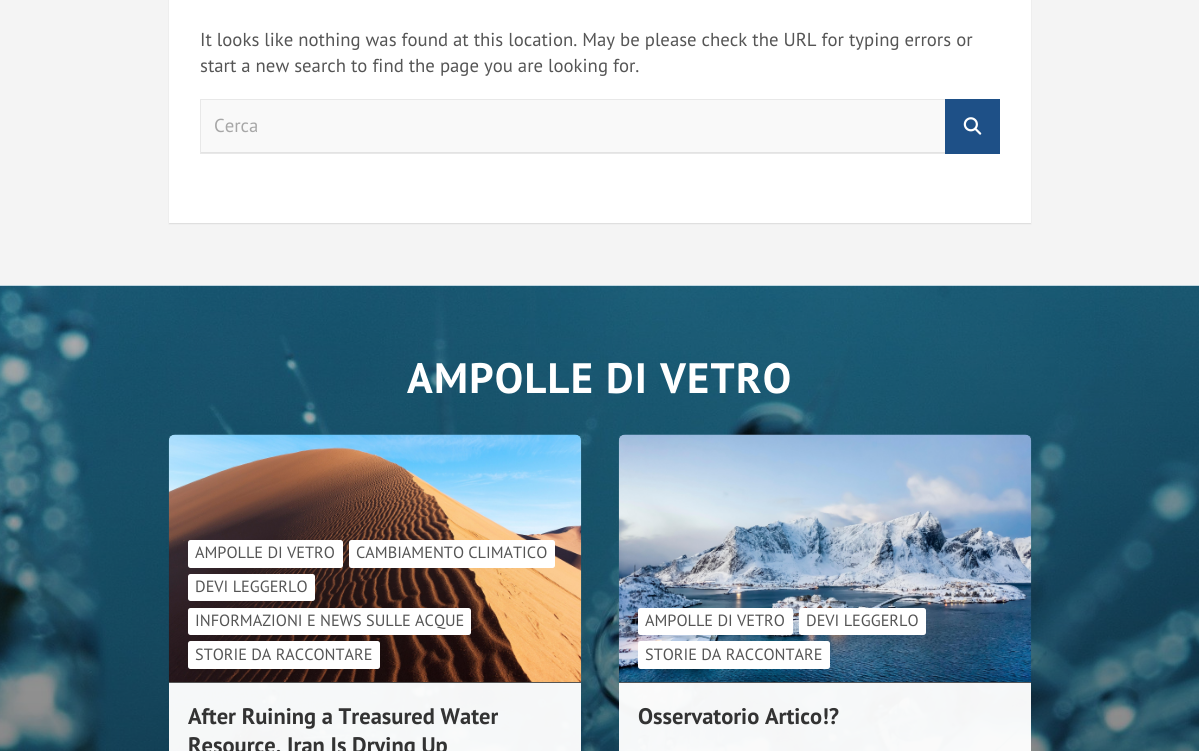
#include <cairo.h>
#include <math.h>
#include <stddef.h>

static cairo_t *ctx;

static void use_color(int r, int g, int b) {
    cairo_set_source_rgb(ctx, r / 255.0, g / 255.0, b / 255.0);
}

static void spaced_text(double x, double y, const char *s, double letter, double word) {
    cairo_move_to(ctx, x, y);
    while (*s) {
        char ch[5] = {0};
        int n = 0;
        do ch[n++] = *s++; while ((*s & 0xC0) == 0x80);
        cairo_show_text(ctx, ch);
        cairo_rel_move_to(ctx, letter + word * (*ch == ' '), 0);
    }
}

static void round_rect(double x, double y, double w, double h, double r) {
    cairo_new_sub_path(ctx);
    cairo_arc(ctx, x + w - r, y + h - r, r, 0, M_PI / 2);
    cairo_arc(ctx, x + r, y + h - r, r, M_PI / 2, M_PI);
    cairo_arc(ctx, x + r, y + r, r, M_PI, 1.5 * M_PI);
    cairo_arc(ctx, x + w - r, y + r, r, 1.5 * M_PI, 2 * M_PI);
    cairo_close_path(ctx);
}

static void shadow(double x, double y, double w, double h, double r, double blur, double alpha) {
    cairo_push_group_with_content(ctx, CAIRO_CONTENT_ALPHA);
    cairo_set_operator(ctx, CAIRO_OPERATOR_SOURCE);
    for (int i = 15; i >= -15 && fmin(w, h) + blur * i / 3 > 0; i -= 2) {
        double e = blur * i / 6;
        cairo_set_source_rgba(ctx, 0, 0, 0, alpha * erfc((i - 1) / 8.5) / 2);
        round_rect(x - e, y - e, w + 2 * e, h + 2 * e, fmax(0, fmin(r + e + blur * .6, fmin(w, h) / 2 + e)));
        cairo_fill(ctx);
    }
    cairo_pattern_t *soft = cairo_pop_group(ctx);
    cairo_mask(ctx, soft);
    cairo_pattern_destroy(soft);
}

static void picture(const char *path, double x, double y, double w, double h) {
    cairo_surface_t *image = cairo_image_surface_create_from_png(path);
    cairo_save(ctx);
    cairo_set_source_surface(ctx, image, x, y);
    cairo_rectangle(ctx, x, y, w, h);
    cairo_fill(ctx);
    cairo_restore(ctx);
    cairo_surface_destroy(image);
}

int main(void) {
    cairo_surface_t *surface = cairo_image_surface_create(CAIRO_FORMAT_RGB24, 1199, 751);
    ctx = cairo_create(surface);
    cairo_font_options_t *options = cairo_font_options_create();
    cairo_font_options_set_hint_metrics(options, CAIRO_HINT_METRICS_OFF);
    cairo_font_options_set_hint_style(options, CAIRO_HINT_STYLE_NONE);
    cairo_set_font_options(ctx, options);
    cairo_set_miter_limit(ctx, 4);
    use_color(244, 244, 244);
    cairo_paint(ctx);
    use_color(0, 0, 0);
    shadow(169, -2, 862, 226, 0, 0.5, 0.1);
    use_color(255, 255, 255);
    cairo_rectangle(ctx, 169, 0, 862, 223);
    cairo_fill(ctx);
    cairo_select_font_face(ctx, "PT Sans", CAIRO_FONT_SLANT_NORMAL, CAIRO_FONT_WEIGHT_NORMAL);
    cairo_set_font_size(ctx, 18.75);
    use_color(85, 85, 85);
    cairo_move_to(ctx, 200, 46);
    cairo_show_text(ctx, "It looks like nothing was found at this location. May be please check the URL for typing errors or");
    cairo_move_to(ctx, 200, 72);
    cairo_show_text(ctx, "start a new search to find the page you are looking for.");
    use_color(249, 249, 249);
    cairo_rectangle(ctx, 201, 100, 744, 53);
    cairo_fill(ctx);
    use_color(232, 232, 232);
    cairo_new_path(ctx);
    cairo_move_to(ctx, 200, 99);
    cairo_line_to(ctx, 945, 99);
    cairo_line_to(ctx, 945, 100);
    cairo_line_to(ctx, 201, 100);
    cairo_close_path(ctx);
    cairo_fill(ctx);
    cairo_set_source_rgba(ctx, 0, 0, 0, 0.09);
    cairo_new_path(ctx);
    cairo_move_to(ctx, 945, 154);
    cairo_line_to(ctx, 200, 154);
    cairo_line_to(ctx, 201, 152);
    cairo_line_to(ctx, 945, 152);
    cairo_close_path(ctx);
    cairo_fill(ctx);
    cairo_new_path(ctx);
    cairo_move_to(ctx, 200, 154);
    cairo_line_to(ctx, 200, 99);
    cairo_line_to(ctx, 201, 100);
    cairo_line_to(ctx, 201, 152);
    cairo_close_path(ctx);
    cairo_fill(ctx);
    use_color(167, 167, 167);
    cairo_move_to(ctx, 214, 132);
    cairo_show_text(ctx, "Cerca");
    use_color(30, 80, 135);
    cairo_rectangle(ctx, 945, 99, 55, 55);
    cairo_fill(ctx);
    picture("img1.png", 963, 117, 19, 18);
    picture("img2.png", 0, 285, 1199, 466);
    cairo_select_font_face(ctx, "PT Sans", CAIRO_FONT_SLANT_NORMAL, CAIRO_FONT_WEIGHT_BOLD);
    cairo_set_font_size(ctx, 42.5);
    use_color(255, 255, 255);
    spaced_text(407, 393, "AMPOLLE DI VETRO", 1.25, 0);
    cairo_set_source_rgba(ctx, 1, 1, 1, 0.96);
    round_rect(169, 435, 412, 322, 6);
    cairo_fill(ctx);
    use_color(85, 85, 85);
    cairo_new_path(ctx);
    cairo_move_to(ctx, 175, 435);
    cairo_line_to(ctx, 575, 435);
    cairo_curve_to(ctx, 578.5, 435, 581, 437.5, 581, 441);
    cairo_line_to(ctx, 581, 683);
    cairo_line_to(ctx, 169, 683);
    cairo_line_to(ctx, 169, 441);
    cairo_curve_to(ctx, 169, 437.5, 171.5, 435, 175, 435);
    cairo_close_path(ctx);
    cairo_fill(ctx);
    picture("img3.png", 168, 434, 414, 248);
    use_color(255, 255, 255);
    round_rect(188, 540, 155, 28, 2.5);
    cairo_fill(ctx);
    cairo_select_font_face(ctx, "PT Sans", CAIRO_FONT_SLANT_NORMAL, CAIRO_FONT_WEIGHT_NORMAL);
    cairo_set_font_size(ctx, 16.25);
    use_color(85, 85, 85);
    cairo_move_to(ctx, 195, 558);
    cairo_show_text(ctx, "AMPOLLE DI VETRO");
    use_color(255, 255, 255);
    round_rect(349, 540, 206, 28, 2.5);
    cairo_fill(ctx);
    use_color(85, 85, 85);
    cairo_move_to(ctx, 356, 558);
    cairo_show_text(ctx, "CAMBIAMENTO CLIMATICO");
    use_color(255, 255, 255);
    round_rect(188, 574, 127, 27, 2.5);
    cairo_fill(ctx);
    use_color(85, 85, 85);
    cairo_move_to(ctx, 195, 592);
    cairo_show_text(ctx, "DEVI LEGGERLO");
    use_color(255, 255, 255);
    round_rect(188, 608, 283, 27, 2.5);
    cairo_fill(ctx);
    use_color(85, 85, 85);
    cairo_move_to(ctx, 195, 626);
    cairo_show_text(ctx, "INFORMAZIONI E NEWS SULLE ACQUE");
    use_color(255, 255, 255);
    round_rect(188, 641, 192, 28, 2.5);
    cairo_fill(ctx);
    use_color(85, 85, 85);
    cairo_move_to(ctx, 195, 660);
    cairo_show_text(ctx, "STORIE DA RACCONTARE");
    cairo_select_font_face(ctx, "PT Sans", CAIRO_FONT_SLANT_NORMAL, CAIRO_FONT_WEIGHT_BOLD);
    cairo_set_font_size(ctx, 22.5);
    use_color(51, 51, 51);
    cairo_move_to(ctx, 188, 724);
    cairo_show_text(ctx, "After Ruining a Treasured Water");
    cairo_move_to(ctx, 188, 753);
    cairo_show_text(ctx, "Resource, Iran Is Drying Up");
    cairo_set_source_rgba(ctx, 1, 1, 1, 0.96);
    round_rect(619, 435, 412, 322, 6);
    cairo_fill(ctx);
    use_color(85, 85, 85);
    cairo_new_path(ctx);
    cairo_move_to(ctx, 625, 435);
    cairo_line_to(ctx, 1025, 435);
    cairo_curve_to(ctx, 1028.5, 435, 1031, 437.5, 1031, 441);
    cairo_line_to(ctx, 1031, 683);
    cairo_line_to(ctx, 619, 683);
    cairo_line_to(ctx, 619, 441);
    cairo_curve_to(ctx, 619, 437.5, 621.5, 435, 625, 435);
    cairo_close_path(ctx);
    cairo_fill(ctx);
    picture("img4.png", 618, 434, 414, 248);
    use_color(255, 255, 255);
    round_rect(638, 608, 155, 27, 2.5);
    cairo_fill(ctx);
    cairo_select_font_face(ctx, "PT Sans", CAIRO_FONT_SLANT_NORMAL, CAIRO_FONT_WEIGHT_NORMAL);
    cairo_set_font_size(ctx, 16.25);
    use_color(85, 85, 85);
    cairo_move_to(ctx, 645, 626);
    cairo_show_text(ctx, "AMPOLLE DI VETRO");
    use_color(255, 255, 255);
    round_rect(799, 608, 127, 27, 2.5);
    cairo_fill(ctx);
    use_color(85, 85, 85);
    cairo_move_to(ctx, 806, 626);
    cairo_show_text(ctx, "DEVI LEGGERLO");
    use_color(255, 255, 255);
    round_rect(638, 641, 192, 28, 2.5);
    cairo_fill(ctx);
    use_color(85, 85, 85);
    cairo_move_to(ctx, 645, 660);
    cairo_show_text(ctx, "STORIE DA RACCONTARE");
    cairo_select_font_face(ctx, "PT Sans", CAIRO_FONT_SLANT_NORMAL, CAIRO_FONT_WEIGHT_BOLD);
    cairo_set_font_size(ctx, 22.5);
    use_color(51, 51, 51);
    cairo_move_to(ctx, 638, 724);
    cairo_show_text(ctx, "Osservatorio Artico!?");
    cairo_surface_write_to_png(surface, "result.png");
    cairo_font_options_destroy(options);
    cairo_destroy(ctx);
    cairo_surface_destroy(surface);
    return 0;
}
